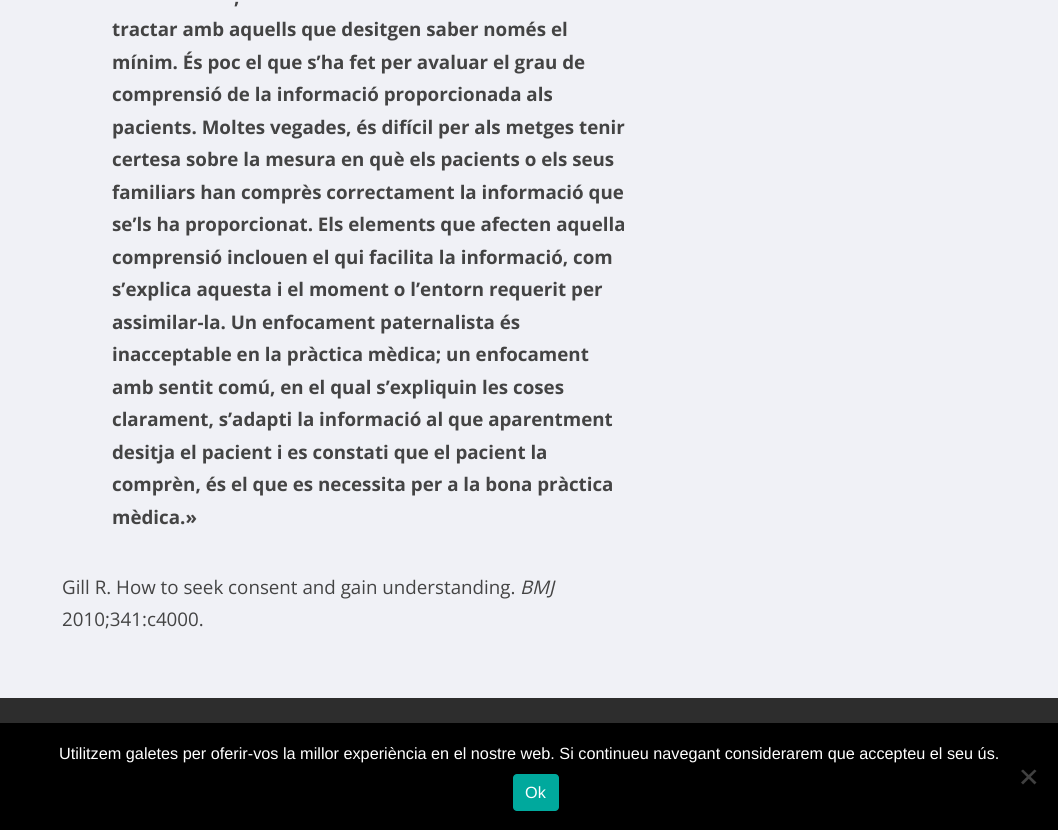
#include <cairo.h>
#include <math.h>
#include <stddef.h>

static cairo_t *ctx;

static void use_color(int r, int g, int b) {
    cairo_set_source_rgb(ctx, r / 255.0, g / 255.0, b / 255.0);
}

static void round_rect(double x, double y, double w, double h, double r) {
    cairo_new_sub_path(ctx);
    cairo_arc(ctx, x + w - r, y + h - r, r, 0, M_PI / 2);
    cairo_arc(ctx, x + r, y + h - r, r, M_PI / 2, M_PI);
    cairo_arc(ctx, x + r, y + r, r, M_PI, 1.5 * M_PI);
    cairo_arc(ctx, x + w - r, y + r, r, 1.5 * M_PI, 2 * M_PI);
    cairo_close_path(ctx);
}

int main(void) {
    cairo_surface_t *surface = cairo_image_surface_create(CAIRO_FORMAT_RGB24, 1058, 830);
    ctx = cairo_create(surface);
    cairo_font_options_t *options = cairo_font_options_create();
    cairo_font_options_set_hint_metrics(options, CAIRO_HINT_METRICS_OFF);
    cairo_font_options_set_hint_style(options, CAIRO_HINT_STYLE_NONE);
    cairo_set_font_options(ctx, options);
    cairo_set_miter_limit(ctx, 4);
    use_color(45, 45, 45);
    cairo_paint(ctx);
    use_color(240, 241, 246);
    cairo_rectangle(ctx, 0, 0, 1058, 698);
    cairo_fill(ctx);
    cairo_select_font_face(ctx, "Open Sans", CAIRO_FONT_SLANT_NORMAL, CAIRO_FONT_WEIGHT_BOLD);
    cairo_set_font_size(ctx, 18.75);
    use_color(68, 68, 68);
    cairo_move_to(ctx, 234, 4);
    cairo_show_text(ctx, ",");
    cairo_move_to(ctx, 112, 36);
    cairo_show_text(ctx, "tractar amb aquells que desitgen saber només el");
    cairo_move_to(ctx, 112, 69);
    cairo_show_text(ctx, "mínim. És poc el que s’ha fet per avaluar el grau de");
    cairo_move_to(ctx, 112, 101);
    cairo_show_text(ctx, "comprensió de la informació proporcionada als");
    cairo_move_to(ctx, 112, 134);
    cairo_show_text(ctx, "pacients. Moltes vegades, és difícil per als metges tenir");
    cairo_move_to(ctx, 112, 166);
    cairo_show_text(ctx, "certesa sobre la mesura en què els pacients o els seus");
    cairo_move_to(ctx, 112, 199);
    cairo_show_text(ctx, "familiars han comprès correctament la informació que");
    cairo_move_to(ctx, 112, 231);
    cairo_show_text(ctx, "se’ls ha proporcionat. Els elements que afecten aquella");
    cairo_move_to(ctx, 112, 264);
    cairo_show_text(ctx, "comprensió inclouen el qui facilita la informació, com");
    cairo_move_to(ctx, 112, 296);
    cairo_show_text(ctx, "s’explica aquesta i el moment o l’entorn requerit per");
    cairo_move_to(ctx, 112, 329);
    cairo_show_text(ctx, "assimilar-la. Un enfocament paternalista és");
    cairo_move_to(ctx, 112, 361);
    cairo_show_text(ctx, "inacceptable en la pràctica mèdica; un enfocament");
    cairo_move_to(ctx, 112, 394);
    cairo_show_text(ctx, "amb sentit comú, en el qual s’expliquin les coses");
    cairo_move_to(ctx, 112, 426);
    cairo_show_text(ctx, "clarament, s’adapti la informació al que aparentment");
    cairo_move_to(ctx, 112, 459);
    cairo_show_text(ctx, "desitja el pacient i es constati que el pacient la");
    cairo_move_to(ctx, 112, 491);
    cairo_show_text(ctx, "comprèn, és el que es necessita per a la bona pràctica");
    cairo_move_to(ctx, 112, 524);
    cairo_show_text(ctx, "mèdica.»");
    cairo_select_font_face(ctx, "Open Sans", CAIRO_FONT_SLANT_NORMAL, CAIRO_FONT_WEIGHT_NORMAL);
    cairo_move_to(ctx, 62, 594);
    cairo_show_text(ctx, "Gill R. How to seek consent and gain understanding.");
    cairo_select_font_face(ctx, "Open Sans", CAIRO_FONT_SLANT_ITALIC, CAIRO_FONT_WEIGHT_NORMAL);
    cairo_move_to(ctx, 520, 594);
    cairo_show_text(ctx, "BMJ");
    cairo_select_font_face(ctx, "Open Sans", CAIRO_FONT_SLANT_NORMAL, CAIRO_FONT_WEIGHT_NORMAL);
    cairo_move_to(ctx, 62, 626);
    cairo_show_text(ctx, "2010;341:c4000.");
    use_color(0, 0, 0);
    cairo_rectangle(ctx, 0, 723, 1058, 107);
    cairo_fill(ctx);
    cairo_select_font_face(ctx, "Liberation Sans", CAIRO_FONT_SLANT_NORMAL, CAIRO_FONT_WEIGHT_NORMAL);
    cairo_set_font_size(ctx, 16.25);
    use_color(255, 255, 255);
    cairo_move_to(ctx, 59, 759);
    cairo_show_text(ctx, "Utilitzem galetes per oferir-vos la millor experiència en el nostre web. Si continueu navegant considerarem que accepteu el seu ús.");
    use_color(64, 64, 64);
    cairo_new_path(ctx);
    cairo_move_to(ctx, 1034.5, 769.5);
    cairo_line_to(ctx, 1036.5, 771);
    cairo_line_to(ctx, 1023, 784.5);
    cairo_line_to(ctx, 1021, 782.5);
    cairo_close_path(ctx);
    cairo_fill(ctx);
    cairo_new_path(ctx);
    cairo_move_to(ctx, 1021, 771);
    cairo_line_to(ctx, 1023, 769.5);
    cairo_line_to(ctx, 1036.5, 782.5);
    cairo_line_to(ctx, 1034.5, 784.5);
    cairo_close_path(ctx);
    cairo_fill(ctx);
    use_color(0, 169, 157);
    round_rect(513, 774, 46, 37, 4);
    cairo_fill(ctx);
    use_color(255, 255, 255);
    cairo_move_to(ctx, 525, 798);
    cairo_show_text(ctx, "Ok");
    cairo_surface_write_to_png(surface, "result.png");
    cairo_font_options_destroy(options);
    cairo_destroy(ctx);
    cairo_surface_destroy(surface);
    return 0;
}
